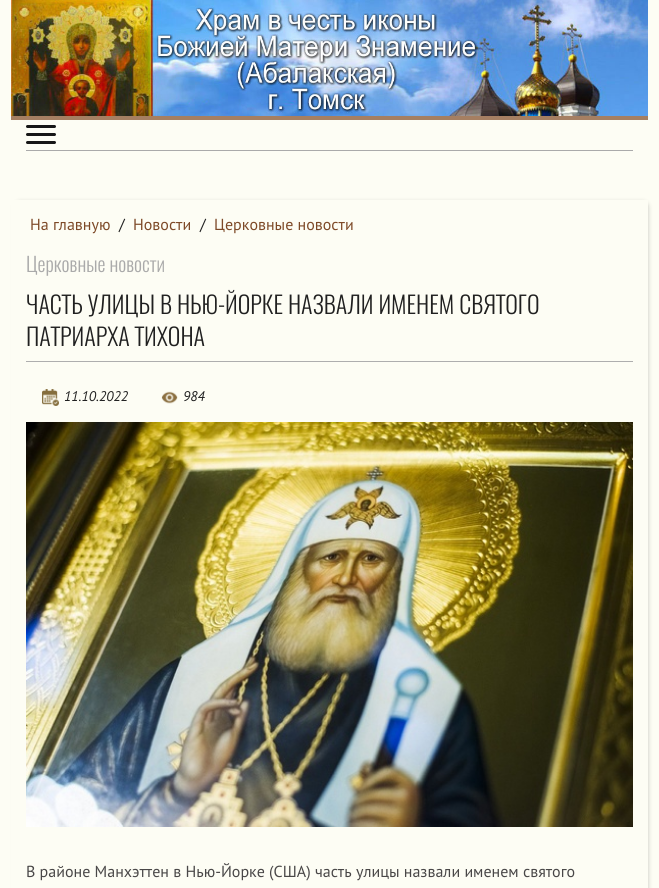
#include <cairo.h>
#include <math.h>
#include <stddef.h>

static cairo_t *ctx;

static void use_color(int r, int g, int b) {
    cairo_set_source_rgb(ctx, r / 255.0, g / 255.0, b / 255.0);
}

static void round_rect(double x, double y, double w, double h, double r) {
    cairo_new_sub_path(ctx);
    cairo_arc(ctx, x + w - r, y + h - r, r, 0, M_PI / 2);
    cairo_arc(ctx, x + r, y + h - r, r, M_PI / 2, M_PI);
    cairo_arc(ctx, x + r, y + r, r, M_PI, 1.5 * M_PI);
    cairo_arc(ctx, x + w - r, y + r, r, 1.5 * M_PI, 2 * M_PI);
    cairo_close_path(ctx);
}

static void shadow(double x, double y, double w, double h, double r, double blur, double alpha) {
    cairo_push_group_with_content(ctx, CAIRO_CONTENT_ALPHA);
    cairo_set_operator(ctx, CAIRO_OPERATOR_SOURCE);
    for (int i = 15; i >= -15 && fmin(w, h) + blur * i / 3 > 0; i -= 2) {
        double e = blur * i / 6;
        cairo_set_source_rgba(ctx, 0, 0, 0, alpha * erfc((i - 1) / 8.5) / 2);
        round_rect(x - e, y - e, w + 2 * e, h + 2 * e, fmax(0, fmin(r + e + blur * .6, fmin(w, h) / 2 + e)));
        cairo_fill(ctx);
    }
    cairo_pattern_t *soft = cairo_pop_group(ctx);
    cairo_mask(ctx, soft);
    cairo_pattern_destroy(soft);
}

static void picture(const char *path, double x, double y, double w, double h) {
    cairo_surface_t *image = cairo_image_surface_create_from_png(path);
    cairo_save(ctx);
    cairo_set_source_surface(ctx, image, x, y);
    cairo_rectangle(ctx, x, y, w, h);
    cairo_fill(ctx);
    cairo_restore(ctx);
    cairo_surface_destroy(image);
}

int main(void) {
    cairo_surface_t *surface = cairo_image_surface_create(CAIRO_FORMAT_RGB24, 659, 888);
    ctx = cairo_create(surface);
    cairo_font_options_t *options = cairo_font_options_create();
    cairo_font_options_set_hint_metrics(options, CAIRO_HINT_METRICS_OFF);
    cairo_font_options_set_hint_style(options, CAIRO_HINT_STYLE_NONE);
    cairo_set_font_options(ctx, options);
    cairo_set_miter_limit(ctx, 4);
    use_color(253, 253, 244);
    cairo_paint(ctx);
    use_color(165, 127, 98);
    cairo_rectangle(ctx, 11, 116, 637, 4);
    cairo_fill(ctx);
    picture("img1.png", 11, 0, 637, 116);
    use_color(170, 170, 170);
    cairo_rectangle(ctx, 26, 150, 607, 1);
    cairo_fill(ctx);
    use_color(22, 22, 22);
    round_rect(26, 125, 30, 3, 1.5);
    cairo_fill(ctx);
    round_rect(26, 133, 30, 3, 1.5);
    cairo_fill(ctx);
    round_rect(26, 141, 30, 3, 1.5);
    cairo_fill(ctx);
    cairo_save(ctx);
    cairo_set_fill_rule(ctx, CAIRO_FILL_RULE_EVEN_ODD);
    cairo_new_path(ctx);
    cairo_move_to(ctx, 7, 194);
    cairo_line_to(ctx, 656, 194);
    cairo_line_to(ctx, 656, 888);
    cairo_line_to(ctx, 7, 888);
    cairo_close_path(ctx);
    cairo_move_to(ctx, 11, 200);
    cairo_line_to(ctx, 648, 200);
    cairo_line_to(ctx, 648, 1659);
    cairo_line_to(ctx, 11, 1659);
    cairo_close_path(ctx);
    cairo_clip(ctx);
    use_color(0, 0, 0);
    shadow(19, 206, 625, 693, 0, 3.5, 1);
    cairo_restore(ctx);
    cairo_select_font_face(ctx, "PT Sans", CAIRO_FONT_SLANT_NORMAL, CAIRO_FONT_WEIGHT_NORMAL);
    cairo_set_font_size(ctx, 16);
    use_color(125, 73, 39);
    cairo_move_to(ctx, 30, 230);
    cairo_show_text(ctx, "На главную");
    use_color(32, 32, 32);
    cairo_move_to(ctx, 119, 230);
    cairo_show_text(ctx, "/");
    use_color(125, 73, 39);
    cairo_move_to(ctx, 133, 230);
    cairo_show_text(ctx, "Новости");
    use_color(32, 32, 32);
    cairo_move_to(ctx, 200, 230);
    cairo_show_text(ctx, "/");
    use_color(125, 73, 39);
    cairo_move_to(ctx, 214, 230);
    cairo_show_text(ctx, "Церковные новости");
    cairo_select_font_face(ctx, "Oswald Light", CAIRO_FONT_SLANT_NORMAL, CAIRO_FONT_WEIGHT_NORMAL);
    cairo_set_font_size(ctx, 20);
    use_color(170, 170, 170);
    cairo_move_to(ctx, 26, 272);
    cairo_show_text(ctx, "Церковные новости");
    use_color(174, 174, 174);
    cairo_rectangle(ctx, 26, 361, 607, 1);
    cairo_fill(ctx);
    cairo_set_font_size(ctx, 24);
    use_color(32, 32, 32);
    cairo_move_to(ctx, 26, 314);
    cairo_show_text(ctx, "ЧАСТЬ УЛИЦЫ В НЬЮ-ЙОРКЕ НАЗВАЛИ ИМЕНЕМ СВЯТОГО");
    cairo_move_to(ctx, 26, 346);
    cairo_show_text(ctx, "ПАТРИАРХА ТИХОНА");
    picture("img2.png", 42, 389, 17, 17);
    cairo_select_font_face(ctx, "PT Sans", CAIRO_FONT_SLANT_ITALIC, CAIRO_FONT_WEIGHT_NORMAL);
    cairo_set_font_size(ctx, 14);
    cairo_move_to(ctx, 64, 401);
    cairo_show_text(ctx, "11.10.2022");
    picture("img3.png", 161, 391, 17, 13);
    cairo_move_to(ctx, 183, 401);
    cairo_show_text(ctx, "984");
    picture("img4.png", 26, 422, 607, 405);
    cairo_select_font_face(ctx, "PT Sans", CAIRO_FONT_SLANT_NORMAL, CAIRO_FONT_WEIGHT_NORMAL);
    cairo_set_font_size(ctx, 16);
    use_color(73, 71, 71);
    cairo_move_to(ctx, 26, 877);
    cairo_show_text(ctx, "В районе Манхэттен в Нью-Йорке (США) часть улицы назвали именем святого");
    cairo_surface_write_to_png(surface, "result.png");
    cairo_font_options_destroy(options);
    cairo_destroy(ctx);
    cairo_surface_destroy(surface);
    return 0;
}
